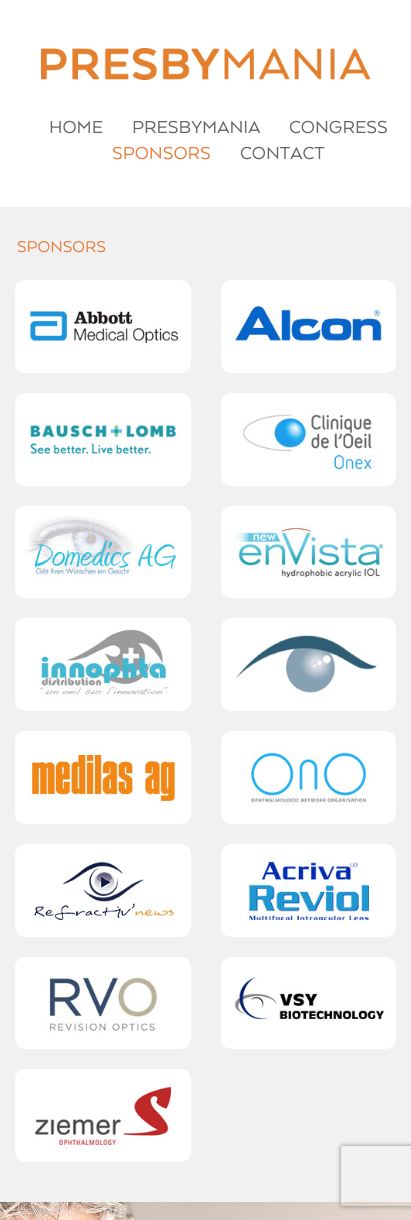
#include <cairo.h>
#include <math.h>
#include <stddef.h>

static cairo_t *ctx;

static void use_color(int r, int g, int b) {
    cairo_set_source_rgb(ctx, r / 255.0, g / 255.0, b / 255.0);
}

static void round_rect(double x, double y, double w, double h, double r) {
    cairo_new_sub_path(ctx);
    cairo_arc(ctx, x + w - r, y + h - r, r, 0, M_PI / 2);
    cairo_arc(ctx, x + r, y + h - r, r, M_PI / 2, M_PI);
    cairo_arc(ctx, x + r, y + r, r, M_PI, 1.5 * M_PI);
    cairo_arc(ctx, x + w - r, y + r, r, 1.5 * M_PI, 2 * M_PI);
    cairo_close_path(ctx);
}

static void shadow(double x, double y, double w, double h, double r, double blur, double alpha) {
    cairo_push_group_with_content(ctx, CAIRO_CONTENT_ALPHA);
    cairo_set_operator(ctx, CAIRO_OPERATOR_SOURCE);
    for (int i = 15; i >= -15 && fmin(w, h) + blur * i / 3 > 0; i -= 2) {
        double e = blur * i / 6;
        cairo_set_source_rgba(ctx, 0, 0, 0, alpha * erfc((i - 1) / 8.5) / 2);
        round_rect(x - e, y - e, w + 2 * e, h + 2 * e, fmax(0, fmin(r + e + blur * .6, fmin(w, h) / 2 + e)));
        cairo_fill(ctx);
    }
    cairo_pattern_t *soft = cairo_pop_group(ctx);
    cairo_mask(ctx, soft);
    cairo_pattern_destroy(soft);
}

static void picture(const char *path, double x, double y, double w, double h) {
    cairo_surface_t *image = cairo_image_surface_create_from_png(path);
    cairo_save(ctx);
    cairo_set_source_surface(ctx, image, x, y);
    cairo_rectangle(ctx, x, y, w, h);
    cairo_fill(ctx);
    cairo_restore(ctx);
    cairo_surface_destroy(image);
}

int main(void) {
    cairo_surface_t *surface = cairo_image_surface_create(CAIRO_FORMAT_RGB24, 411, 1220);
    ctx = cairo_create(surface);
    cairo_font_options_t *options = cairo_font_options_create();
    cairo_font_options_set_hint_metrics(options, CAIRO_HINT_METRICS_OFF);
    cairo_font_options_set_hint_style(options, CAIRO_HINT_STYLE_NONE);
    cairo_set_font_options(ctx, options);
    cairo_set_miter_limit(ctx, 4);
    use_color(241, 241, 241);
    cairo_paint(ctx);
    use_color(255, 255, 255);
    cairo_rectangle(ctx, 0, 0, 411, 207);
    cairo_fill(ctx);
    picture("img1.png", 41, 48, 329, 32);
    cairo_select_font_face(ctx, "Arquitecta", CAIRO_FONT_SLANT_NORMAL, CAIRO_FONT_WEIGHT_NORMAL);
    cairo_set_font_size(ctx, 20);
    use_color(102, 102, 102);
    cairo_move_to(ctx, 49, 133);
    cairo_show_text(ctx, "HOME");
    cairo_move_to(ctx, 132, 133);
    cairo_show_text(ctx, "PRESBYMANIA");
    cairo_move_to(ctx, 289, 133);
    cairo_show_text(ctx, "CONGRESS");
    use_color(231, 126, 61);
    cairo_move_to(ctx, 112, 159);
    cairo_show_text(ctx, "SPONSORS");
    use_color(102, 102, 102);
    cairo_move_to(ctx, 240, 159);
    cairo_show_text(ctx, "CONTACT");
    cairo_set_font_size(ctx, 18);
    use_color(231, 126, 61);
    cairo_move_to(ctx, 17, 252);
    cairo_show_text(ctx, "SPONSORS");
    picture("img2.png", 15, 280, 176, 93);
    picture("img3.png", 221, 280, 175, 93);
    picture("img4.png", 15, 393, 176, 93);
    picture("img5.png", 221, 393, 175, 93);
    picture("img6.png", 15, 506, 176, 92);
    picture("img7.png", 221, 506, 175, 92);
    picture("img8.png", 15, 618, 176, 93);
    picture("img9.png", 221, 618, 175, 93);
    picture("img10.png", 15, 731, 176, 93);
    picture("img11.png", 221, 731, 175, 93);
    picture("img12.png", 15, 844, 176, 93);
    picture("img13.png", 221, 844, 175, 93);
    picture("img14.png", 15, 957, 176, 92);
    picture("img15.png", 221, 957, 175, 92);
    picture("img16.png", 15, 1069, 176, 93);
    picture("img17.png", 0, 1202, 411, 18);
    cairo_save(ctx);
    cairo_set_fill_rule(ctx, CAIRO_FILL_RULE_EVEN_ODD);
    cairo_new_path(ctx);
    cairo_move_to(ctx, 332, 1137);
    cairo_line_to(ctx, 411, 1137);
    cairo_line_to(ctx, 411, 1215);
    cairo_line_to(ctx, 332, 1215);
    cairo_close_path(ctx);
    cairo_move_to(ctx, 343, 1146);
    cairo_line_to(ctx, 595, 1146);
    cairo_curve_to(ctx, 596, 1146, 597, 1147, 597, 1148);
    cairo_line_to(ctx, 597, 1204);
    cairo_curve_to(ctx, 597, 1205, 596, 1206, 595, 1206);
    cairo_line_to(ctx, 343, 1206);
    cairo_curve_to(ctx, 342, 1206, 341, 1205, 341, 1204);
    cairo_line_to(ctx, 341, 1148);
    cairo_curve_to(ctx, 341, 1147, 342, 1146, 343, 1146);
    cairo_close_path(ctx);
    cairo_clip(ctx);
    use_color(128, 128, 128);
    shadow(341, 1146, 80, 60, 2, 2.5, 1);
    cairo_restore(ctx);
    cairo_surface_write_to_png(surface, "result.png");
    cairo_font_options_destroy(options);
    cairo_destroy(ctx);
    cairo_surface_destroy(surface);
    return 0;
}
